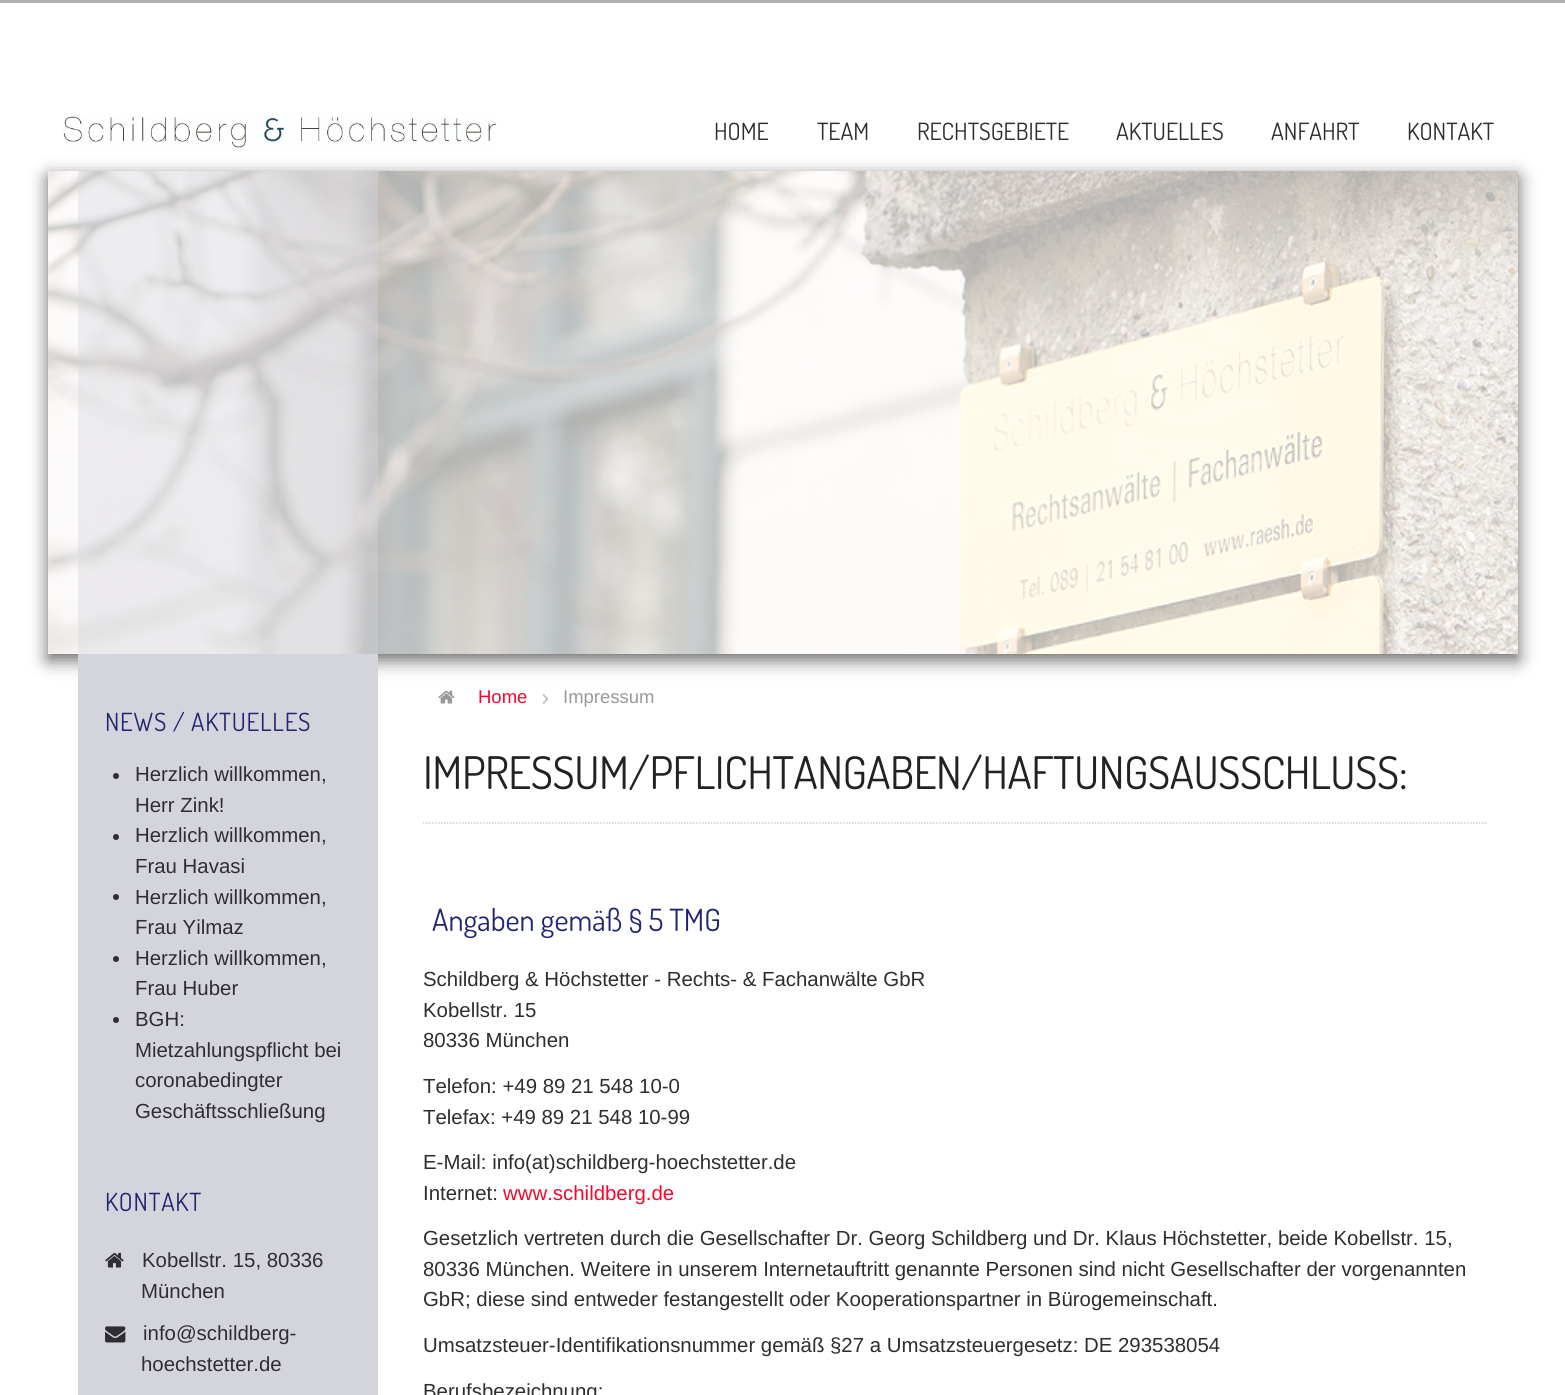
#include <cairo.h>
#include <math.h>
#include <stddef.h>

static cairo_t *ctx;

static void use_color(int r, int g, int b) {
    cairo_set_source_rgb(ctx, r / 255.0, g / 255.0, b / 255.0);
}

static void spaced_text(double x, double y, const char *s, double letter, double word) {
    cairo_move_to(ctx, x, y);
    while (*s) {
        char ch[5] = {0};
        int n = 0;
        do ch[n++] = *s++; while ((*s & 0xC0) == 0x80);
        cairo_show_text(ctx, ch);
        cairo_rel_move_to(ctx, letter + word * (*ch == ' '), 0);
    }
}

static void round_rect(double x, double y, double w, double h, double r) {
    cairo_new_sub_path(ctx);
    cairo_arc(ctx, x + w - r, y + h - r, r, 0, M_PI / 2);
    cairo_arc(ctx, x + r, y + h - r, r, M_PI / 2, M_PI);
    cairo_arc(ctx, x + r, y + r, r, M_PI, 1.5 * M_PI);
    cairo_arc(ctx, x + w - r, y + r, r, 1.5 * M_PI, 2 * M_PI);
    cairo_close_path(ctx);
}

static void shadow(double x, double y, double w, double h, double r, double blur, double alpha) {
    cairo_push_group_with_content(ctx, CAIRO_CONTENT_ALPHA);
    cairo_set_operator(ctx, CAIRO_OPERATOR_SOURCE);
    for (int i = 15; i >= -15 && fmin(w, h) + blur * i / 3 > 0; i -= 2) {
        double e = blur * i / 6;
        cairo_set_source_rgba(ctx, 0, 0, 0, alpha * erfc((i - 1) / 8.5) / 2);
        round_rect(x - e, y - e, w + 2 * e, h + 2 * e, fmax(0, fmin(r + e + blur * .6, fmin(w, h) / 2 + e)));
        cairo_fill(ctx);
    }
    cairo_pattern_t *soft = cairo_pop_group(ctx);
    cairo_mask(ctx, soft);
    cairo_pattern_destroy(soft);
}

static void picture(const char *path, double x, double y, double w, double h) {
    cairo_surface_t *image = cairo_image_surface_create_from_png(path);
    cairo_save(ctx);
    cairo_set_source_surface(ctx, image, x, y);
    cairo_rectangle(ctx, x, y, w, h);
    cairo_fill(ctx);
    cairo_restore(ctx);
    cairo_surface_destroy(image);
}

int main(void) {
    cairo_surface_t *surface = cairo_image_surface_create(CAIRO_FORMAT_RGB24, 1565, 1395);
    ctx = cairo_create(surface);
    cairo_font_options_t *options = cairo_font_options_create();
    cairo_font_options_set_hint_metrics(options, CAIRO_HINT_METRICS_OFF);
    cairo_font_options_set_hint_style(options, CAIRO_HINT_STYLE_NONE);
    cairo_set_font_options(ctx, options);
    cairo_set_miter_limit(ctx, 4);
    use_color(255, 255, 255);
    cairo_paint(ctx);
    use_color(173, 179, 172);
    cairo_rectangle(ctx, 0, 0, 1565, 3);
    cairo_fill(ctx);
    picture("img1.png", 63, 116, 434, 32);
    cairo_select_font_face(ctx, "Dosis", CAIRO_FONT_SLANT_NORMAL, CAIRO_FONT_WEIGHT_NORMAL);
    cairo_set_font_size(ctx, 23.75);
    use_color(46, 46, 50);
    cairo_move_to(ctx, 714, 140);
    cairo_show_text(ctx, "HOME");
    cairo_move_to(ctx, 817, 140);
    cairo_show_text(ctx, "TEAM");
    cairo_move_to(ctx, 917, 140);
    cairo_show_text(ctx, "RECHTSGEBIETE");
    cairo_move_to(ctx, 1116, 140);
    cairo_show_text(ctx, "AKTUELLES");
    cairo_move_to(ctx, 1271, 140);
    cairo_show_text(ctx, "ANFAHRT");
    cairo_move_to(ctx, 1407, 140);
    cairo_show_text(ctx, "KONTAKT");
    cairo_save(ctx);
    cairo_set_fill_rule(ctx, CAIRO_FILL_RULE_EVEN_ODD);
    cairo_new_path(ctx);
    cairo_move_to(ctx, 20, 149);
    cairo_line_to(ctx, 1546, 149);
    cairo_line_to(ctx, 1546, 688);
    cairo_line_to(ctx, 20, 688);
    cairo_close_path(ctx);
    cairo_move_to(ctx, 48, 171);
    cairo_line_to(ctx, 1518, 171);
    cairo_line_to(ctx, 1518, 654);
    cairo_line_to(ctx, 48, 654);
    cairo_close_path(ctx);
    cairo_clip(ctx);
    use_color(0, 0, 0);
    shadow(48, 177, 1470, 483, 0, 9, 0.6);
    cairo_restore(ctx);
    picture("img2.png", 48, 171, 1470, 483);
    cairo_set_source_rgba(ctx, 0.831, 0.831, 0.863, 0.4);
    cairo_rectangle(ctx, 78, 171, 300, 483);
    cairo_fill(ctx);
    use_color(212, 212, 220);
    cairo_rectangle(ctx, 78, 654, 300, 741);
    cairo_fill(ctx);
    cairo_set_font_size(ctx, 25);
    use_color(35, 37, 110);
    spaced_text(105, 731, "NEWS / AKTUELLES", 0.75, 0);
    use_color(46, 46, 50);
    cairo_new_path(ctx);
    cairo_arc(ctx, 116, 776, 3, 0, 2 * M_PI);
    cairo_fill(ctx);
    cairo_select_font_face(ctx, "Liberation Sans", CAIRO_FONT_SLANT_NORMAL, CAIRO_FONT_WEIGHT_NORMAL);
    cairo_set_font_size(ctx, 20.4);
    cairo_move_to(ctx, 135, 781);
    cairo_show_text(ctx, "Herzlich willkommen,");
    cairo_move_to(ctx, 135, 812);
    cairo_show_text(ctx, "Herr Zink!");
    cairo_new_path(ctx);
    cairo_arc(ctx, 116, 837, 3, 0, 2 * M_PI);
    cairo_fill(ctx);
    cairo_move_to(ctx, 135, 842);
    cairo_show_text(ctx, "Herzlich willkommen,");
    cairo_move_to(ctx, 135, 873);
    cairo_show_text(ctx, "Frau Havasi");
    cairo_new_path(ctx);
    cairo_arc(ctx, 116, 897, 3, 0, 2 * M_PI);
    cairo_fill(ctx);
    cairo_move_to(ctx, 135, 904);
    cairo_show_text(ctx, "Herzlich willkommen,");
    cairo_move_to(ctx, 135, 934);
    cairo_show_text(ctx, "Frau Yilmaz");
    cairo_new_path(ctx);
    cairo_arc(ctx, 116, 959, 3, 0, 2 * M_PI);
    cairo_fill(ctx);
    cairo_move_to(ctx, 135, 965);
    cairo_show_text(ctx, "Herzlich willkommen,");
    cairo_move_to(ctx, 135, 995);
    cairo_show_text(ctx, "Frau Huber");
    cairo_new_path(ctx);
    cairo_arc(ctx, 116, 1020, 3, 0, 2 * M_PI);
    cairo_fill(ctx);
    cairo_move_to(ctx, 135, 1026);
    cairo_show_text(ctx, "BGH:");
    cairo_move_to(ctx, 135, 1057);
    cairo_show_text(ctx, "Mietzahlungspflicht bei");
    cairo_move_to(ctx, 135, 1087);
    cairo_show_text(ctx, "coronabedingter");
    cairo_move_to(ctx, 135, 1118);
    cairo_show_text(ctx, "Geschäftsschließung");
    cairo_select_font_face(ctx, "Dosis", CAIRO_FONT_SLANT_NORMAL, CAIRO_FONT_WEIGHT_NORMAL);
    cairo_set_font_size(ctx, 25);
    use_color(35, 37, 110);
    spaced_text(105, 1211, "KONTAKT", 0.75, 0);
    picture("img3.png", 105, 1252, 19, 16);
    cairo_select_font_face(ctx, "Liberation Sans", CAIRO_FONT_SLANT_NORMAL, CAIRO_FONT_WEIGHT_NORMAL);
    cairo_set_font_size(ctx, 20.4);
    use_color(46, 46, 50);
    cairo_move_to(ctx, 142, 1267);
    cairo_show_text(ctx, "Kobellstr. 15, 80336");
    cairo_move_to(ctx, 141, 1298);
    cairo_show_text(ctx, "München");
    picture("img4.png", 105, 1326, 21, 17);
    cairo_move_to(ctx, 143, 1340);
    cairo_show_text(ctx, "info@schildberg-");
    cairo_move_to(ctx, 141, 1371);
    cairo_show_text(ctx, "hoechstetter.de");
    picture("img5.png", 438, 690, 17, 14);
    cairo_set_font_size(ctx, 18.5);
    use_color(245, 8, 43);
    cairo_move_to(ctx, 478, 703);
    cairo_show_text(ctx, "Home");
    picture("img6.png", 542, 694, 6, 10);
    use_color(153, 153, 153);
    cairo_move_to(ctx, 563, 703);
    cairo_show_text(ctx, "Impressum");
    cairo_new_path(ctx);
    cairo_move_to(ctx, 423, 823);
    cairo_line_to(ctx, 1488, 823);
    use_color(204, 204, 204);
    cairo_set_line_width(ctx, 1.5);
    cairo_set_dash(ctx, (double[]){1.5, 1.5}, 2, 0);
    cairo_stroke(ctx);
    cairo_select_font_face(ctx, "Dosis", CAIRO_FONT_SLANT_NORMAL, CAIRO_FONT_WEIGHT_NORMAL);
    cairo_set_font_size(ctx, 44.9);
    use_color(34, 34, 34);
    spaced_text(423, 789, "IMPRESSUM/PFLICHTANGABEN/HAFTUNGSAUSSCHLUSS:", -0.45, 0);
    cairo_set_font_size(ctx, 30.5);
    use_color(35, 37, 110);
    cairo_move_to(ctx, 432, 931);
    cairo_show_text(ctx, "Angaben gemäß § 5 TMG");
    cairo_select_font_face(ctx, "Liberation Sans", CAIRO_FONT_SLANT_NORMAL, CAIRO_FONT_WEIGHT_NORMAL);
    cairo_set_font_size(ctx, 20.4);
    use_color(46, 46, 50);
    cairo_move_to(ctx, 423, 986);
    cairo_show_text(ctx, "Schildberg & Höchstetter - Rechts- & Fachanwälte GbR");
    cairo_move_to(ctx, 423, 1017);
    cairo_show_text(ctx, "Kobellstr. 15");
    cairo_move_to(ctx, 423, 1047);
    cairo_show_text(ctx, "80336 München");
    cairo_move_to(ctx, 423, 1093);
    cairo_show_text(ctx, "Telefon: +49 89 21 548 10-0");
    cairo_move_to(ctx, 423, 1124);
    cairo_show_text(ctx, "Telefax: +49 89 21 548 10-99");
    cairo_move_to(ctx, 423, 1169);
    cairo_show_text(ctx, "E-Mail: info(at)schildberg-hoechstetter.de");
    cairo_move_to(ctx, 423, 1200);
    cairo_show_text(ctx, "Internet:");
    use_color(245, 8, 43);
    cairo_move_to(ctx, 503, 1200);
    cairo_show_text(ctx, "www.schildberg.de");
    use_color(46, 46, 50);
    cairo_move_to(ctx, 423, 1245);
    cairo_show_text(ctx, "Gesetzlich vertreten durch die Gesellschafter Dr. Georg Schildberg und Dr. Klaus Höchstetter, beide Kobellstr. 15,");
    cairo_move_to(ctx, 423, 1276);
    cairo_show_text(ctx, "80336 München. Weitere in unserem Internetauftritt genannte Personen sind nicht Gesellschafter der vorgenannten");
    cairo_move_to(ctx, 423, 1306);
    cairo_show_text(ctx, "GbR; diese sind entweder festangestellt oder Kooperationspartner in Bürogemeinschaft.");
    cairo_move_to(ctx, 423, 1352);
    cairo_show_text(ctx, "Umsatzsteuer-Identifikationsnummer gemäß §27 a Umsatzsteuergesetz: DE 293538054");
    cairo_move_to(ctx, 423, 1398);
    cairo_show_text(ctx, "Berufsbezeichnung:");
    cairo_surface_write_to_png(surface, "result.png");
    cairo_font_options_destroy(options);
    cairo_destroy(ctx);
    cairo_surface_destroy(surface);
    return 0;
}
